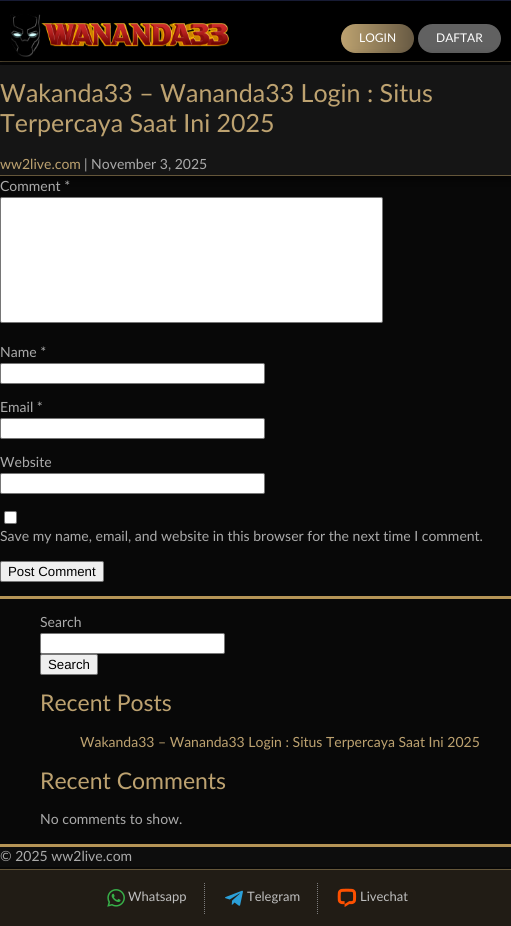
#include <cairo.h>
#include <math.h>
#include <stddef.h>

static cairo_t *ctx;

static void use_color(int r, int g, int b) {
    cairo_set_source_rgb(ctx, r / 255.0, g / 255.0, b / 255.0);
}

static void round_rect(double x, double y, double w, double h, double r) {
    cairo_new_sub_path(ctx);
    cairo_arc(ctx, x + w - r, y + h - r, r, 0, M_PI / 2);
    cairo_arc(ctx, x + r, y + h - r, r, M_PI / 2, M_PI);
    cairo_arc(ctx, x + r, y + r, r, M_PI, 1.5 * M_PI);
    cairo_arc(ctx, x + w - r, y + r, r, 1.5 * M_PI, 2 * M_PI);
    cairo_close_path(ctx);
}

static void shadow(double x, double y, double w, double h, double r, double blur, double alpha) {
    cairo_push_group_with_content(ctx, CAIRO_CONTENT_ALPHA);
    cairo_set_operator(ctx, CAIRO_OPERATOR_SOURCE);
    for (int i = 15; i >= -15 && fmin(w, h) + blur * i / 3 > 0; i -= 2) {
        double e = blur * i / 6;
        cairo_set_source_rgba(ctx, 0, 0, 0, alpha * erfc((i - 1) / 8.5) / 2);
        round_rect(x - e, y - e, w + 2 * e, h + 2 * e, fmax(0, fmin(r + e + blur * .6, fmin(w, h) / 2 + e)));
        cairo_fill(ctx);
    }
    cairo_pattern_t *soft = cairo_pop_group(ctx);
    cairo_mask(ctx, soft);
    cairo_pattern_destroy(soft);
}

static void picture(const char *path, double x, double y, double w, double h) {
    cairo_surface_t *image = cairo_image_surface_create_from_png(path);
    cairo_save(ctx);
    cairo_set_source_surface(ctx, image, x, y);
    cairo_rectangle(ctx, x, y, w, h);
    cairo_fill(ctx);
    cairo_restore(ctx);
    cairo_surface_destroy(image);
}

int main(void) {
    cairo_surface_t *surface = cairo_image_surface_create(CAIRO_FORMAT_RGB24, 511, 926);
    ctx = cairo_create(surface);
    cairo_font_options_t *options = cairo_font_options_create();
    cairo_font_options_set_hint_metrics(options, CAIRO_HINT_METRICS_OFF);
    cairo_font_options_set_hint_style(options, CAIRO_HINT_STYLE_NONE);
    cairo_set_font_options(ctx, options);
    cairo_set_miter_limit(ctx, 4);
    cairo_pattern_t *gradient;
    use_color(8, 8, 8);
    cairo_paint(ctx);
    use_color(100, 86, 58);
    cairo_rectangle(ctx, 0, 61, 511, 1);
    cairo_fill(ctx);
    use_color(0, 0, 0);
    cairo_rectangle(ctx, 0, 1, 511, 60);
    cairo_fill(ctx);
    picture("img1.png", 10, 14, 219, 43);
    gradient = cairo_pattern_create_linear(341, 39, 414, 39);
    cairo_pattern_add_color_stop_rgba(gradient, 0, 0.741, 0.635, 0.439, 1);
    cairo_pattern_add_color_stop_rgba(gradient, 1, 0.404, 0.353, 0.263, 1);
    cairo_set_source(ctx, gradient);
    cairo_pattern_destroy(gradient);
    round_rect(341, 24, 73, 29, 14.5);
    cairo_fill(ctx);
    cairo_select_font_face(ctx, "Lato", CAIRO_FONT_SLANT_NORMAL, CAIRO_FONT_WEIGHT_NORMAL);
    cairo_set_font_size(ctx, 12);
    use_color(255, 255, 255);
    cairo_move_to(ctx, 359, 42);
    cairo_show_text(ctx, "LOGIN");
    use_color(97, 97, 97);
    round_rect(418, 24, 83, 29, 14.5);
    cairo_fill(ctx);
    use_color(255, 255, 255);
    cairo_move_to(ctx, 436, 42);
    cairo_show_text(ctx, "DAFTAR");
    use_color(23, 27, 52);
    cairo_rectangle(ctx, 0, 0, 511, 1);
    cairo_fill(ctx);
    use_color(33, 28, 21);
    cairo_rectangle(ctx, 0, 870, 511, 56);
    cairo_fill(ctx);
    use_color(100, 86, 58);
    cairo_rectangle(ctx, 0, 869, 511, 1);
    cairo_fill(ctx);
    picture("img2.png", 107, 889, 18, 18);
    cairo_set_font_size(ctx, 13);
    use_color(190, 190, 190);
    cairo_move_to(ctx, 128, 901);
    cairo_show_text(ctx, "Whatsapp");
    cairo_new_path(ctx);
    cairo_move_to(ctx, 204.5, 883);
    cairo_line_to(ctx, 204.5, 914);
    use_color(125, 125, 125);
    cairo_set_line_width(ctx, 1);
    cairo_set_dash(ctx, (double[]){1, 1}, 2, 0);
    cairo_stroke(ctx);
    picture("img3.png", 225, 890, 18, 16);
    use_color(190, 190, 190);
    cairo_move_to(ctx, 247, 901);
    cairo_show_text(ctx, "Telegram");
    cairo_new_path(ctx);
    cairo_move_to(ctx, 317.5, 883);
    cairo_line_to(ctx, 317.5, 914);
    use_color(125, 125, 125);
    cairo_stroke(ctx);
    picture("img4.png", 337, 888, 20, 19);
    use_color(190, 190, 190);
    cairo_move_to(ctx, 360, 901);
    cairo_show_text(ctx, "Livechat");
    use_color(255, 255, 255);
    round_rect(0.5, 197.5, 382, 125, 1.5);
    cairo_fill_preserve(ctx);
    use_color(118, 118, 118);
    cairo_set_dash(ctx, NULL, 0, 0);
    cairo_stroke(ctx);
    use_color(0, 0, 0);
    shadow(0, 65, 511, 111, 0, 7.5, 1);
    use_color(21, 21, 21);
    cairo_rectangle(ctx, 0, 65, 511, 110);
    cairo_fill(ctx);
    use_color(100, 86, 58);
    cairo_rectangle(ctx, 0, 175, 511, 1);
    cairo_fill(ctx);
    cairo_set_font_size(ctx, 25);
    use_color(189, 162, 112);
    cairo_move_to(ctx, 0, 102);
    cairo_show_text(ctx, "Wakanda33 – Wananda33 Login : Situs");
    cairo_move_to(ctx, 0, 132);
    cairo_show_text(ctx, "Terpercaya Saat Ini 2025");
    cairo_set_font_size(ctx, 14);
    cairo_move_to(ctx, 0, 169);
    cairo_show_text(ctx, "ww2live.com");
    use_color(170, 170, 170);
    cairo_move_to(ctx, 84, 169);
    cairo_show_text(ctx, "| November 3, 2025");
    cairo_move_to(ctx, 0, 191);
    cairo_show_text(ctx, "Comment *");
    cairo_move_to(ctx, 0, 357);
    cairo_show_text(ctx, "Name *");
    use_color(255, 255, 255);
    round_rect(0.5, 363.5, 264, 20, 1.5);
    cairo_fill_preserve(ctx);
    use_color(118, 118, 118);
    cairo_stroke(ctx);
    use_color(170, 170, 170);
    cairo_move_to(ctx, 0, 412);
    cairo_show_text(ctx, "Email *");
    use_color(255, 255, 255);
    round_rect(0.5, 418.5, 264, 20, 1.5);
    cairo_fill_preserve(ctx);
    use_color(118, 118, 118);
    cairo_stroke(ctx);
    use_color(170, 170, 170);
    cairo_move_to(ctx, 0, 467);
    cairo_show_text(ctx, "Website");
    use_color(255, 255, 255);
    round_rect(0.5, 473.5, 264, 20, 1.5);
    cairo_fill_preserve(ctx);
    use_color(118, 118, 118);
    cairo_stroke(ctx);
    use_color(255, 255, 255);
    round_rect(4.5, 511.5, 12, 12, 1.5);
    cairo_fill_preserve(ctx);
    use_color(118, 118, 118);
    cairo_stroke(ctx);
    use_color(170, 170, 170);
    cairo_move_to(ctx, 0, 541);
    cairo_show_text(ctx, "Save my name, email, and website in this browser for the next time I comment.");
    use_color(239, 239, 239);
    round_rect(0.5, 561.5, 103, 20, 1.5);
    cairo_fill_preserve(ctx);
    use_color(118, 118, 118);
    cairo_stroke(ctx);
    cairo_select_font_face(ctx, "Liberation Sans", CAIRO_FONT_SLANT_NORMAL, CAIRO_FONT_WEIGHT_NORMAL);
    cairo_set_font_size(ctx, 13.25);
    use_color(0, 0, 0);
    cairo_move_to(ctx, 8, 576);
    cairo_show_text(ctx, "Post Comment");
    use_color(181, 148, 86);
    cairo_rectangle(ctx, 0, 596, 511, 3);
    cairo_fill(ctx);
    cairo_select_font_face(ctx, "Lato", CAIRO_FONT_SLANT_NORMAL, CAIRO_FONT_WEIGHT_NORMAL);
    cairo_set_font_size(ctx, 14);
    use_color(170, 170, 170);
    cairo_move_to(ctx, 40, 627);
    cairo_show_text(ctx, "Search");
    use_color(255, 255, 255);
    round_rect(40.5, 633.5, 184, 20, 1.5);
    cairo_fill_preserve(ctx);
    use_color(118, 118, 118);
    cairo_stroke(ctx);
    use_color(239, 239, 239);
    round_rect(40.5, 654.5, 57, 20, 1.5);
    cairo_fill_preserve(ctx);
    use_color(118, 118, 118);
    cairo_stroke(ctx);
    cairo_select_font_face(ctx, "Liberation Sans", CAIRO_FONT_SLANT_NORMAL, CAIRO_FONT_WEIGHT_NORMAL);
    cairo_set_font_size(ctx, 13.25);
    use_color(0, 0, 0);
    cairo_move_to(ctx, 48, 669);
    cairo_show_text(ctx, "Search");
    cairo_select_font_face(ctx, "Lato", CAIRO_FONT_SLANT_NORMAL, CAIRO_FONT_WEIGHT_NORMAL);
    cairo_set_font_size(ctx, 23);
    use_color(189, 162, 112);
    cairo_move_to(ctx, 40, 711);
    cairo_show_text(ctx, "Recent Posts");
    cairo_set_font_size(ctx, 14);
    cairo_move_to(ctx, 80, 747);
    cairo_show_text(ctx, "Wakanda33 – Wananda33 Login : Situs Terpercaya Saat Ini 2025");
    cairo_set_font_size(ctx, 23);
    cairo_move_to(ctx, 40, 789);
    cairo_show_text(ctx, "Recent Comments");
    cairo_set_font_size(ctx, 14);
    use_color(170, 170, 170);
    cairo_move_to(ctx, 40, 824);
    cairo_show_text(ctx, "No comments to show.");
    use_color(13, 13, 13);
    cairo_rectangle(ctx, 0, 847, 511, 20);
    cairo_fill(ctx);
    use_color(181, 148, 86);
    cairo_rectangle(ctx, 0, 844, 511, 3);
    cairo_fill(ctx);
    use_color(170, 170, 170);
    cairo_move_to(ctx, 0, 861);
    cairo_show_text(ctx, "© 2025 ww2live.com");
    cairo_surface_write_to_png(surface, "result.png");
    cairo_font_options_destroy(options);
    cairo_destroy(ctx);
    cairo_surface_destroy(surface);
    return 0;
}
